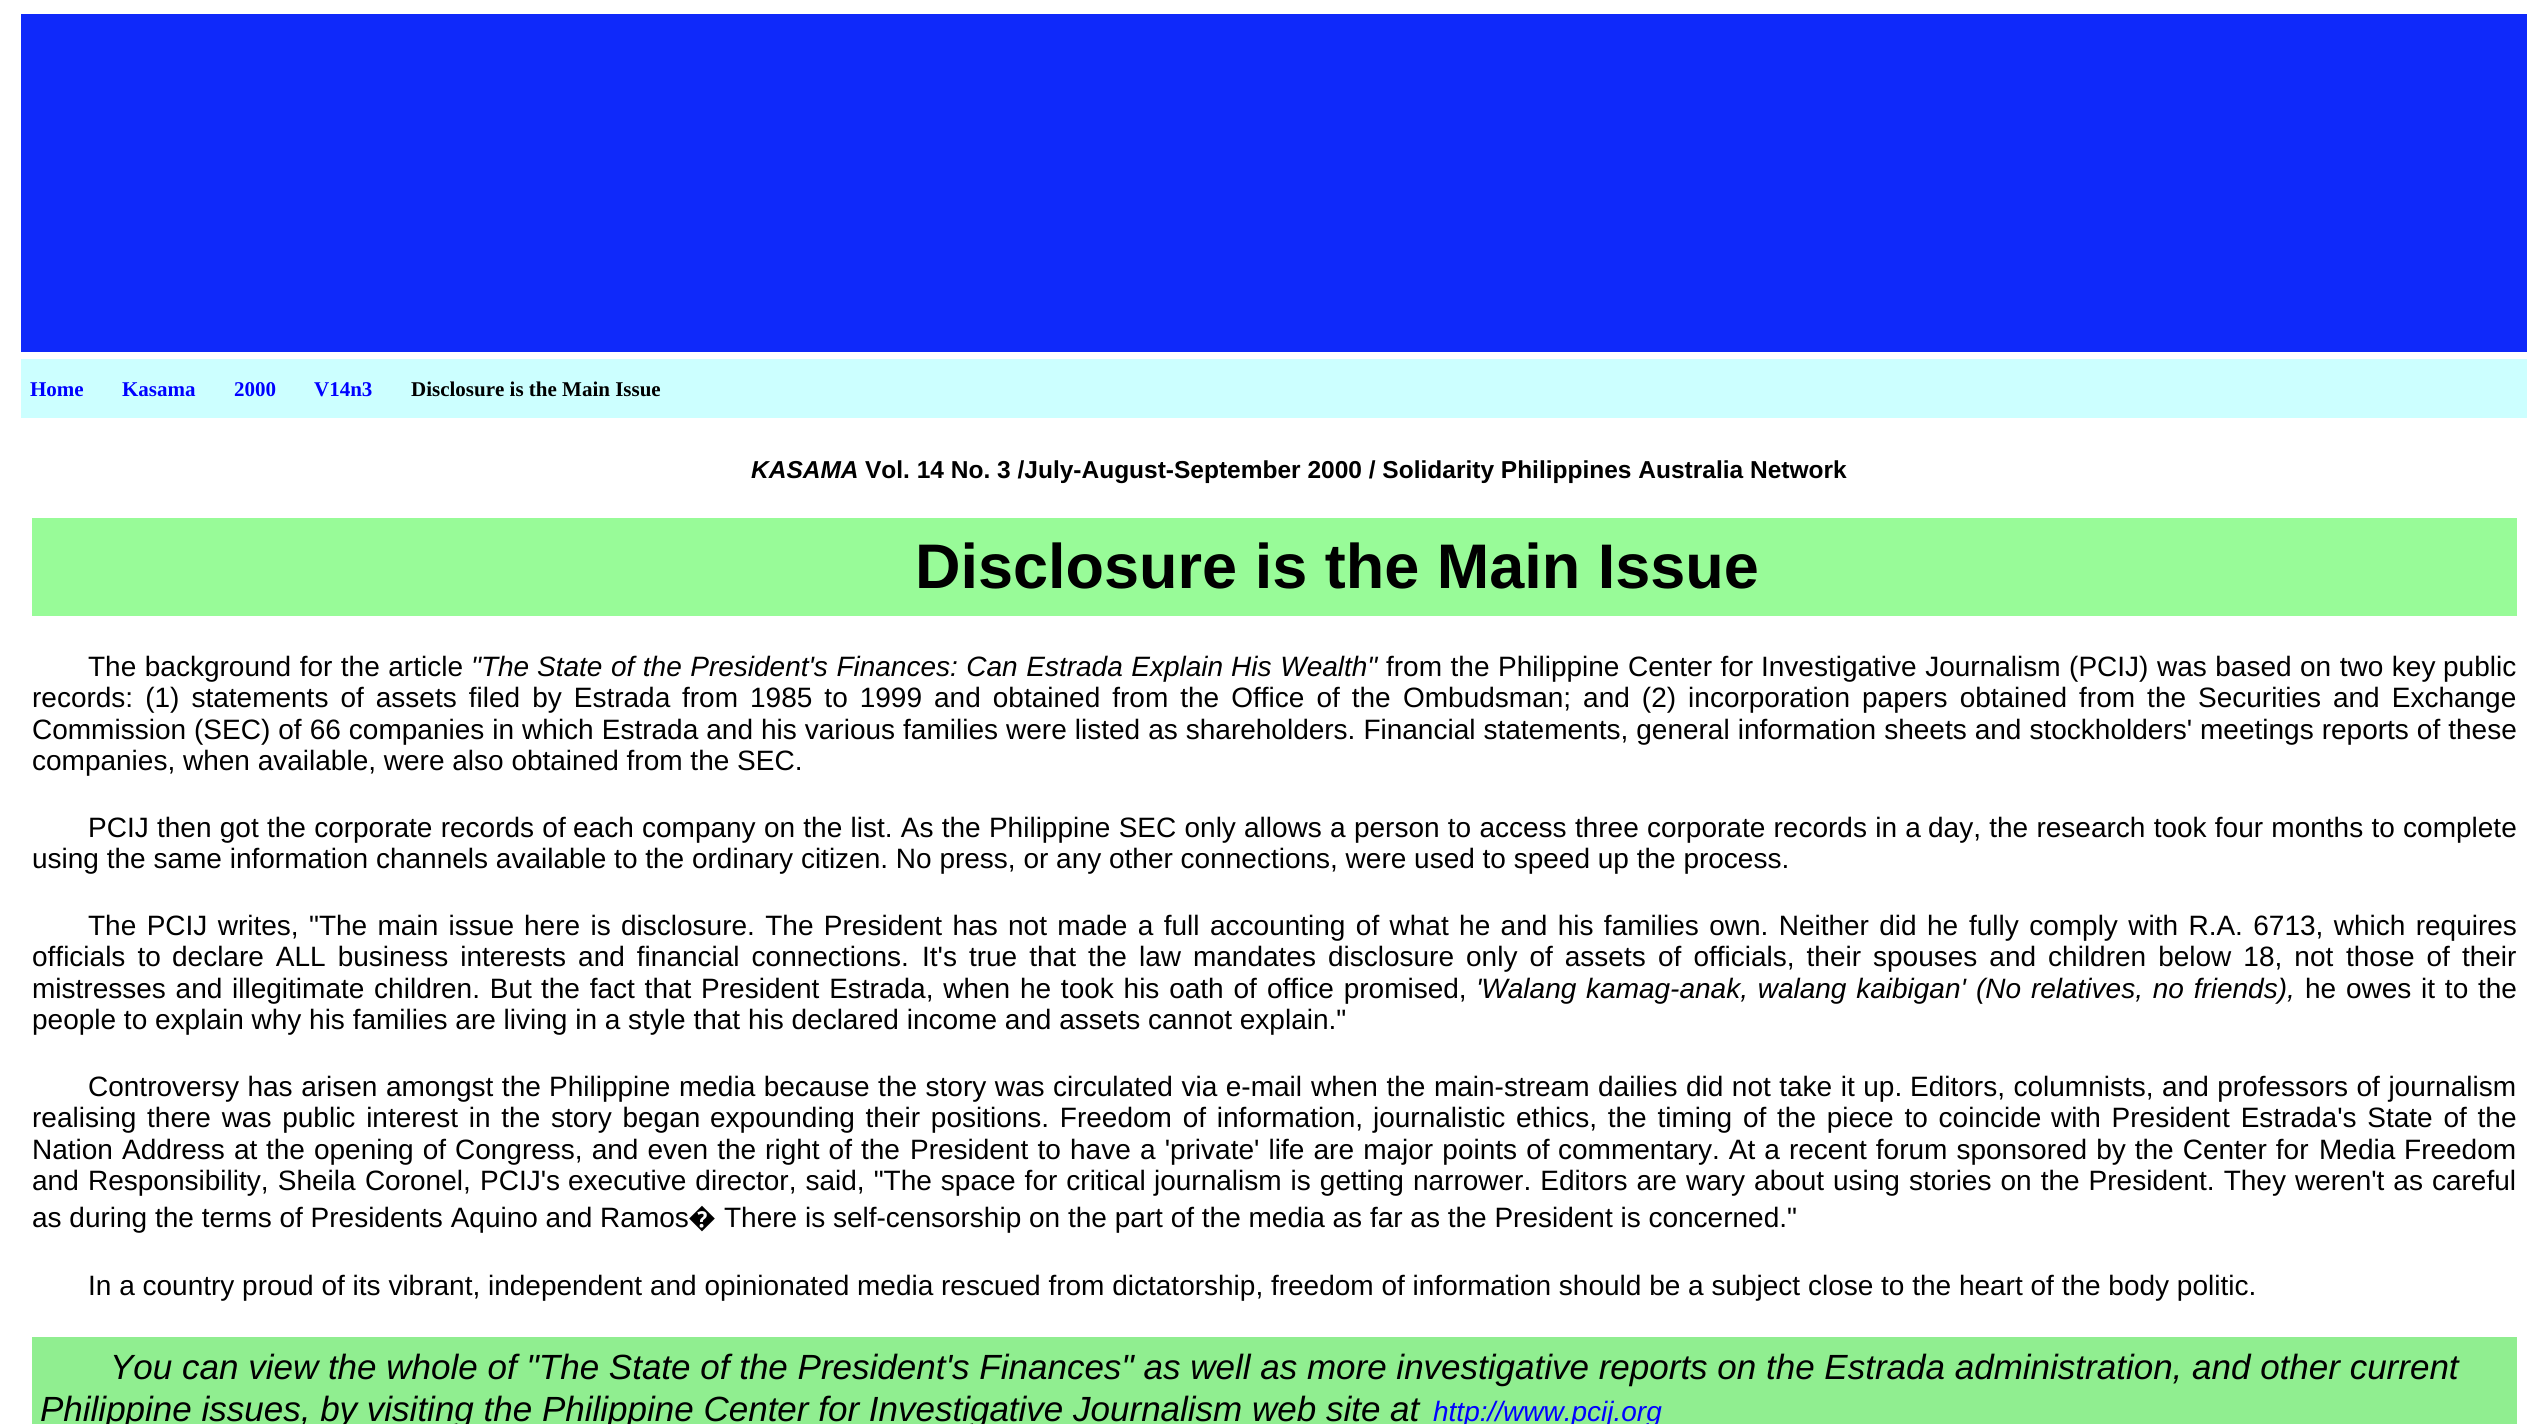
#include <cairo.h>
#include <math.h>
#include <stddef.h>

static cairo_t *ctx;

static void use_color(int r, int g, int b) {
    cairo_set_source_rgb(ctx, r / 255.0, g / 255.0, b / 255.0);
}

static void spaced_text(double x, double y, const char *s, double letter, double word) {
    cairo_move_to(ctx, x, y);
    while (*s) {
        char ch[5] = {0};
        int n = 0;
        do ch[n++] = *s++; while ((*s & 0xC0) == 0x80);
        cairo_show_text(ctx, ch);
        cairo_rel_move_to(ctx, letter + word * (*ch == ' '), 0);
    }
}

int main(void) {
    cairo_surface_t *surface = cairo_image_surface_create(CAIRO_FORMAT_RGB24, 2548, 1424);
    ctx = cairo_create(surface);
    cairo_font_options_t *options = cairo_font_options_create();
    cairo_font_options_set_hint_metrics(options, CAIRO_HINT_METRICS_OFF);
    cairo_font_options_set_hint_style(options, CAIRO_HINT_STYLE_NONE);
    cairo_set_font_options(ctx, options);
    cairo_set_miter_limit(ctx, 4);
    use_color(255, 255, 255);
    cairo_paint(ctx);
    use_color(15, 41, 250);
    cairo_rectangle(ctx, 21, 14, 2506, 338);
    cairo_fill(ctx);
    use_color(204, 255, 255);
    cairo_rectangle(ctx, 21, 359, 2506, 59);
    cairo_fill(ctx);
    cairo_select_font_face(ctx, "Liberation Serif", CAIRO_FONT_SLANT_NORMAL, CAIRO_FONT_WEIGHT_BOLD);
    cairo_set_font_size(ctx, 21);
    use_color(0, 0, 255);
    cairo_move_to(ctx, 30, 396);
    cairo_show_text(ctx, "Home");
    cairo_move_to(ctx, 122, 396);
    cairo_show_text(ctx, "Kasama");
    cairo_move_to(ctx, 234, 396);
    cairo_show_text(ctx, "2000");
    cairo_move_to(ctx, 314, 396);
    cairo_show_text(ctx, "V14n3");
    use_color(0, 0, 0);
    cairo_move_to(ctx, 411, 396);
    cairo_show_text(ctx, "Disclosure is the Main Issue");
    cairo_select_font_face(ctx, "Liberation Sans", CAIRO_FONT_SLANT_ITALIC, CAIRO_FONT_WEIGHT_BOLD);
    cairo_set_font_size(ctx, 24.5);
    cairo_move_to(ctx, 751, 478);
    cairo_show_text(ctx, "KASAMA");
    cairo_select_font_face(ctx, "Liberation Sans", CAIRO_FONT_SLANT_NORMAL, CAIRO_FONT_WEIGHT_BOLD);
    cairo_move_to(ctx, 865, 478);
    cairo_show_text(ctx, "Vol. 14 No. 3 /July-August-September 2000 / Solidarity Philippines Australia Network");
    use_color(152, 251, 152);
    cairo_rectangle(ctx, 32, 518, 2485, 98);
    cairo_fill(ctx);
    cairo_set_font_size(ctx, 63);
    use_color(0, 0, 0);
    cairo_move_to(ctx, 915, 588);
    cairo_show_text(ctx, "Disclosure is the Main Issue");
    cairo_select_font_face(ctx, "Liberation Sans", CAIRO_FONT_SLANT_NORMAL, CAIRO_FONT_WEIGHT_NORMAL);
    cairo_set_font_size(ctx, 28);
    spaced_text(88, 676, "The background for the article", 0, 0.75);
    cairo_select_font_face(ctx, "Liberation Sans", CAIRO_FONT_SLANT_ITALIC, CAIRO_FONT_WEIGHT_NORMAL);
    cairo_move_to(ctx, 471, 676);
    cairo_show_text(ctx, "\"The");
    spaced_text(537, 676, "State of the President's Finances: Can Estrada Explain", 0, 0.75);
    spaced_text(1231, 676, "His Wealth\"", 0, 1);
    cairo_select_font_face(ctx, "Liberation Sans", CAIRO_FONT_SLANT_NORMAL, CAIRO_FONT_WEIGHT_NORMAL);
    spaced_text(1386, 676, "from the Philippine Center for", 0, 0.75);
    spaced_text(1761, 676, "Investigative Journalism (PCIJ) was based on two key", 0, 0.75);
    cairo_move_to(ctx, 2443, 676);
    cairo_show_text(ctx, "public");
    spaced_text(32, 707, "records: (1) statements of assets filed by Estrada", 0, 4.25);
    spaced_text(682, 707, "from 1985 to 1999 and obtained from the Office of the", 0, 4.25);
    spaced_text(1403, 707, "Ombudsman; and (2) incorporation papers obtained from the", 0, 4.25);
    spaced_text(2198, 707, "Securities and Exchange", 0, 4.25);
    spaced_text(32, 739, "Commission (SEC) of 66 companies in which Estrada and his various families were listed as shareholders. Financial statements, general information sheets and stockholders' meetings reports of these", 0, 0.25);
    cairo_move_to(ctx, 32, 770);
    cairo_show_text(ctx, "companies, when available, were also obtained from the SEC.");
    spaced_text(88, 837, "PCIJ then got the corporate records of", 0, 0.5);
    spaced_text(573, 837, "each company on the list. As the Philippine SEC only", 0, 0.5);
    spaced_text(1244, 837, "allows a person to access three corporate records in a", 0, 0.5);
    spaced_text(1928, 837, "day, the research took four months to complete", 0, 0.5);
    cairo_move_to(ctx, 32, 868);
    cairo_show_text(ctx, "using the same information channels available to the ordinary citizen. No press, or any other connections, were used to speed up the process.");
    spaced_text(88, 935, "The PCIJ writes, \"The main issue", 0, 2.6);
    spaced_text(524, 935, "here is disclosure. The President has not made a full", 0, 2.6);
    spaced_text(1210, 935, "accounting of what he and his families own. Neither did he", 0, 2.6);
    spaced_text(1969, 935, "fully comply with R.A. 6713, which requires", 0, 2.6);
    spaced_text(32, 966, "officials to", 0, 4.25);
    spaced_text(172, 966, "declare ALL business interests and financial connections.", 0, 4.25);
    spaced_text(922, 966, "It's true that the law mandates disclosure only of assets", 0, 4.25);
    spaced_text(1658, 966, "of officials, their spouses and children below 18, not", 0, 4.25);
    spaced_text(2346, 966, "those of their", 0, 4.25);
    spaced_text(32, 998, "mistresses and illegitimate children. But", 0, 2);
    spaced_text(541, 998, "the fact that President Estrada, when he took his oath of", 0, 2);
    spaced_text(1267, 998, "office promised,", 0, 2);
    cairo_select_font_face(ctx, "Liberation Sans", CAIRO_FONT_SLANT_ITALIC, CAIRO_FONT_WEIGHT_NORMAL);
    spaced_text(1476, 998, "'Walang kamag-anak, walang kaibigan'", 0, 2);
    spaced_text(1976, 998, "(No relatives, no friends),", 0, 2);
    cairo_select_font_face(ctx, "Liberation Sans", CAIRO_FONT_SLANT_NORMAL, CAIRO_FONT_WEIGHT_NORMAL);
    spaced_text(2305, 998, "he owes it to the", 0, 2);
    cairo_move_to(ctx, 32, 1029);
    cairo_show_text(ctx, "people to explain why his families are living in a style that his declared income and assets cannot explain.\"");
    spaced_text(88, 1096, "Controversy has arisen amongst the", 0, 0.75);
    spaced_text(549, 1096, "Philippine media because the story was circulated via e-mail", 0, 0.75);
    spaced_text(1311, 1096, "when the main-stream dailies did not take it up.", 0, 0.75);
    spaced_text(1910, 1096, "Editors, columnists, and professors of journalism", 0, 0.75);
    spaced_text(32, 1127, "realising there was public interest in the story began", 0, 3);
    spaced_text(710, 1127, "expounding their positions. Freedom of information,", 0, 3);
    spaced_text(1373, 1127, "journalistic ethics, the timing of the piece to coincide", 0, 3);
    spaced_text(2051, 1127, "with President Estrada's State of the", 0, 3);
    spaced_text(32, 1159, "Nation Address at", 0, 1.4);
    spaced_text(266, 1159, "the opening of Congress, and even the right of the", 0, 1.25);
    spaced_text(910, 1159, "President to have a 'private' life are major points of", 0, 1.4);
    spaced_text(1558, 1159, "commentary. At a recent forum sponsored by the Center for", 0, 1.25);
    spaced_text(2319, 1159, "Media Freedom", 0, 1);
    spaced_text(32, 1190, "and Responsibility, Sheila Coronel, PCIJ's", 0, 1.5);
    spaced_text(568, 1190, "executive director, said, \"The space for critical", 0, 1.25);
    spaced_text(1154, 1190, "journalism is getting narrower. Editors are wary about", 0, 1.25);
    spaced_text(1833, 1190, "using stories on the President. They weren't as careful", 0, 1.25);
    cairo_move_to(ctx, 32, 1227);
    cairo_show_text(ctx, "as during the terms of Presidents Aquino and Ramos");
    cairo_select_font_face(ctx, "Noto Sans", CAIRO_FONT_SLANT_NORMAL, CAIRO_FONT_WEIGHT_NORMAL);
    cairo_move_to(ctx, 688, 1227);
    cairo_show_text(ctx, "�");
    cairo_select_font_face(ctx, "Liberation Sans", CAIRO_FONT_SLANT_NORMAL, CAIRO_FONT_WEIGHT_NORMAL);
    cairo_move_to(ctx, 724, 1227);
    cairo_show_text(ctx, "There is self-censorship on the part of the media as far as the President is concerned.\"");
    cairo_move_to(ctx, 88, 1295);
    cairo_show_text(ctx, "In a country proud of its vibrant, independent and opinionated media rescued from dictatorship, freedom of information should be a subject close to the heart of the body politic.");
    use_color(144, 238, 144);
    cairo_rectangle(ctx, 32, 1337, 2485, 87);
    cairo_fill(ctx);
    cairo_select_font_face(ctx, "Liberation Sans", CAIRO_FONT_SLANT_ITALIC, CAIRO_FONT_WEIGHT_NORMAL);
    cairo_set_font_size(ctx, 35);
    use_color(0, 0, 0);
    cairo_move_to(ctx, 110, 1379);
    cairo_show_text(ctx, "You can view the whole of \"The State of the President's Finances\" as well as more investigative reports on the Estrada administration, and other current");
    cairo_move_to(ctx, 40, 1421);
    cairo_show_text(ctx, "Philippine issues, by visiting the Philippine Center for Investigative Journalism web site at");
    cairo_set_font_size(ctx, 28);
    use_color(0, 0, 255);
    cairo_move_to(ctx, 1433, 1421);
    cairo_show_text(ctx, "http://www.pcij.org");
    cairo_surface_write_to_png(surface, "result.png");
    cairo_font_options_destroy(options);
    cairo_destroy(ctx);
    cairo_surface_destroy(surface);
    return 0;
}
